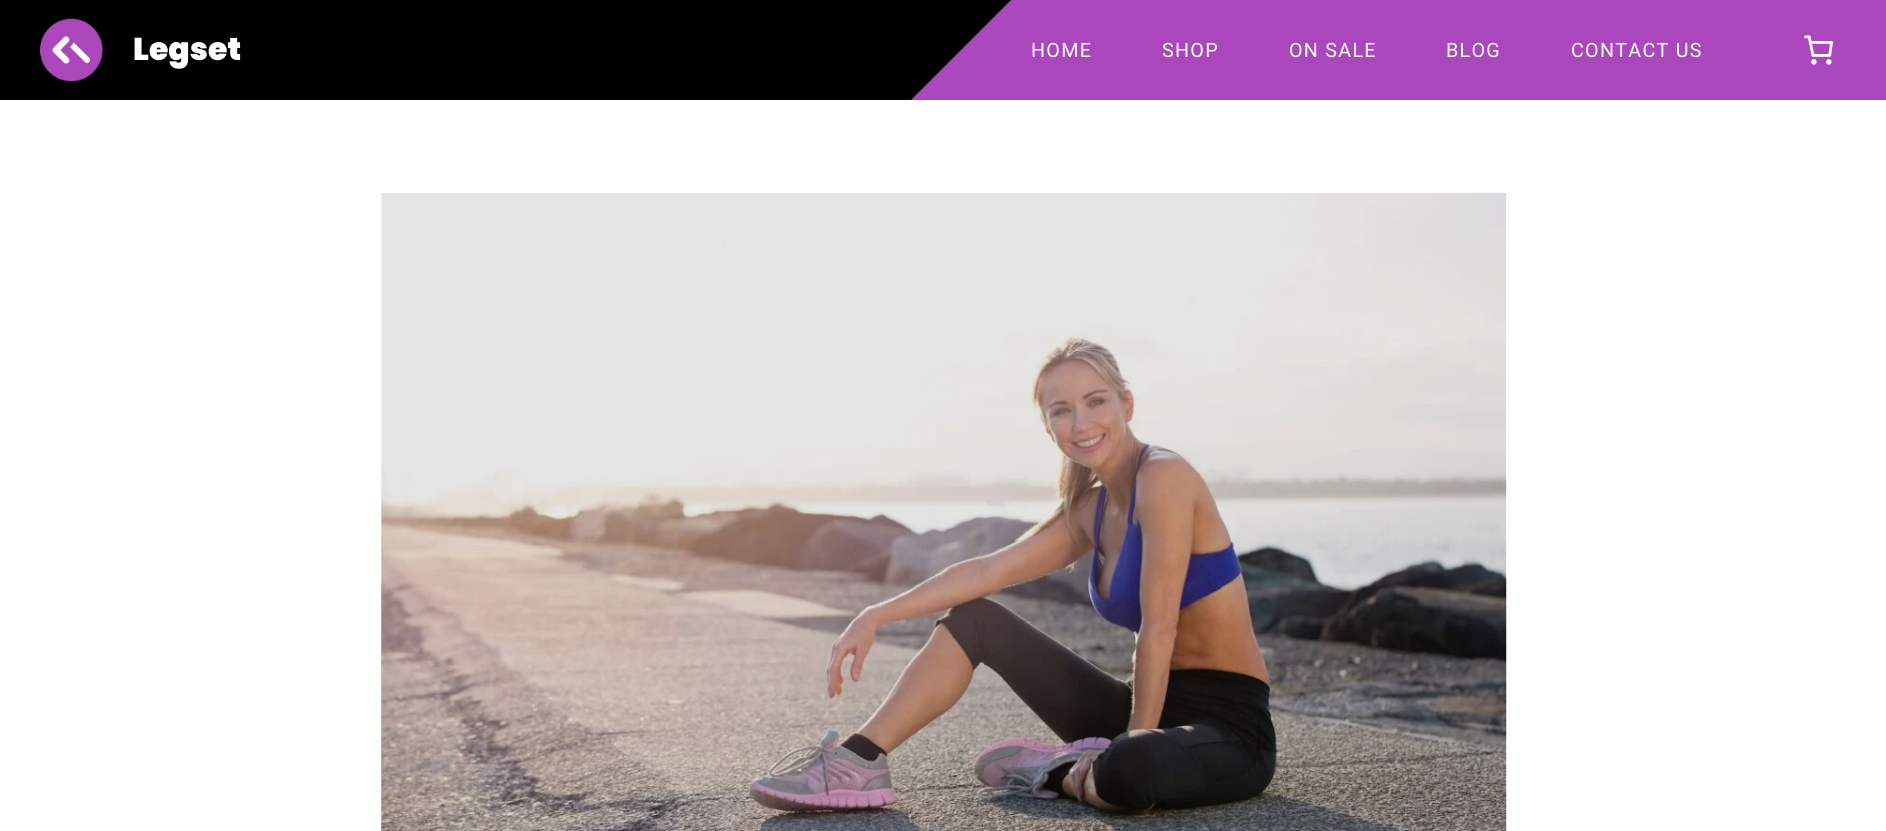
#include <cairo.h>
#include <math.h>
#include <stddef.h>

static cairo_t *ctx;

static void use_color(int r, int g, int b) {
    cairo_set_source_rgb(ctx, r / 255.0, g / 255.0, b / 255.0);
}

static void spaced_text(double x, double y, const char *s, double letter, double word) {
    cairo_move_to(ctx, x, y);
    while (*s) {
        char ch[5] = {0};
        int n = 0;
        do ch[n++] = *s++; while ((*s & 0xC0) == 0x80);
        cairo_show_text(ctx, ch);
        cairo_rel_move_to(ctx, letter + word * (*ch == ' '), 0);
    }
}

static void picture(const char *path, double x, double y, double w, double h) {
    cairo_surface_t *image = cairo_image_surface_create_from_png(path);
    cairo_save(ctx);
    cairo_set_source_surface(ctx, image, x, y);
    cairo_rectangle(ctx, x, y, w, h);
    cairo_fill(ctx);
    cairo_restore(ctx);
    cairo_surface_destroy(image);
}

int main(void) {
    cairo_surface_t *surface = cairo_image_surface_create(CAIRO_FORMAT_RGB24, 1886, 831);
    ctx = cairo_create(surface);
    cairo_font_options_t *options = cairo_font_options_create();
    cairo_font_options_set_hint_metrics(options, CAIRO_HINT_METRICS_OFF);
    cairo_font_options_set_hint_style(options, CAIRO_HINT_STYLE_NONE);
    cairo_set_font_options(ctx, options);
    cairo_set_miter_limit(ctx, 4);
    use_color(255, 255, 255);
    cairo_paint(ctx);
    use_color(0, 0, 0);
    cairo_rectangle(ctx, 0, 0, 1011, 100);
    cairo_fill(ctx);
    picture("img1.png", 40, 18, 63, 64);
    cairo_select_font_face(ctx, "Poppins Black", CAIRO_FONT_SLANT_NORMAL, CAIRO_FONT_WEIGHT_NORMAL);
    cairo_set_font_size(ctx, 31.5);
    use_color(255, 255, 255);
    cairo_move_to(ctx, 133, 60);
    cairo_show_text(ctx, "Legset");
    use_color(171, 71, 188);
    cairo_rectangle(ctx, 1011, 0, 875, 100);
    cairo_fill(ctx);
    cairo_new_path(ctx);
    cairo_move_to(ctx, 1011, 100);
    cairo_line_to(ctx, 911, 100);
    cairo_line_to(ctx, 1011, 0);
    cairo_close_path(ctx);
    cairo_fill(ctx);
    cairo_select_font_face(ctx, "Roboto", CAIRO_FONT_SLANT_NORMAL, CAIRO_FONT_WEIGHT_NORMAL);
    cairo_set_font_size(ctx, 19.75);
    use_color(255, 255, 255);
    spaced_text(1031, 57, "HOME", 1.25, 0);
    spaced_text(1162, 57, "SHOP", 1.25, 0);
    spaced_text(1289, 57, "ON SALE", 1.25, 0);
    spaced_text(1446, 57, "BLOG", 1.25, 0);
    spaced_text(1571, 57, "CONTACT US", 1.25, 0);
    picture("img2.png", 1804, 35, 29, 30);
    picture("img3.png", 381, 192, 1126, 639);
    cairo_surface_write_to_png(surface, "result.png");
    cairo_font_options_destroy(options);
    cairo_destroy(ctx);
    cairo_surface_destroy(surface);
    return 0;
}
